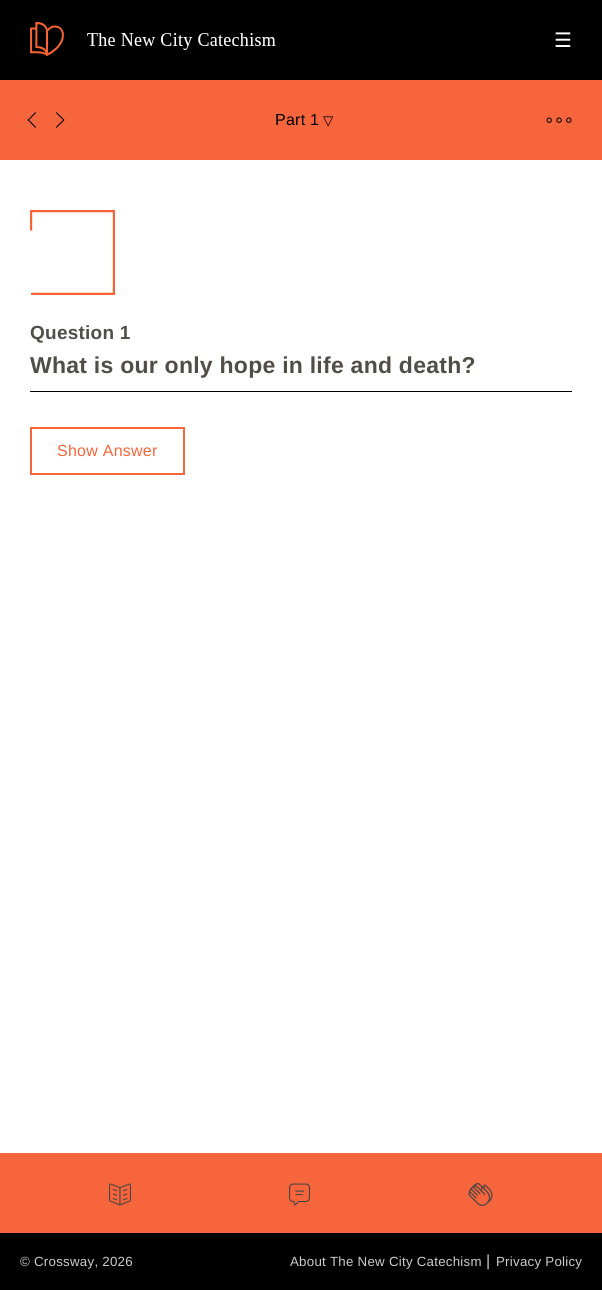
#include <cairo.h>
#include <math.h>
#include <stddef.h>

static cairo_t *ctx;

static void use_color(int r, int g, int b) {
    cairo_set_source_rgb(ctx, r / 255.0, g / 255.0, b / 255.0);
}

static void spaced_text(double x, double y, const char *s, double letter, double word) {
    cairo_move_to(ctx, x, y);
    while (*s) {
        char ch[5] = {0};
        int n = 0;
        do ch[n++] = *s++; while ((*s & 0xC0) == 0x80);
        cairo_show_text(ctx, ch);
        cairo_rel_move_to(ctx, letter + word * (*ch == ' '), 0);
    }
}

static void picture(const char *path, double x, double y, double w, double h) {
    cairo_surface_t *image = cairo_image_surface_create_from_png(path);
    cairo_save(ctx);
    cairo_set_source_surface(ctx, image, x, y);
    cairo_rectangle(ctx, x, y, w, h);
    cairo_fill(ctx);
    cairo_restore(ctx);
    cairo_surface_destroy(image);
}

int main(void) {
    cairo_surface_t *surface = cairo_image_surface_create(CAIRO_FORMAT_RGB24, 602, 1290);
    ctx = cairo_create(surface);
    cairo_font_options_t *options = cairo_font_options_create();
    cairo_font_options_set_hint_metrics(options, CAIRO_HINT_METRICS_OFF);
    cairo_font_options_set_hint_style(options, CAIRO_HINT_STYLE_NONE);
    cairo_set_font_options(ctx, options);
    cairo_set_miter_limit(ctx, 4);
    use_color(255, 255, 255);
    cairo_paint(ctx);
    use_color(0, 0, 0);
    cairo_rectangle(ctx, 0, 0, 602, 80);
    cairo_fill(ctx);
    picture("img1.png", 30, 22, 246, 35);
    cairo_select_font_face(ctx, "DejaVu Sans", CAIRO_FONT_SLANT_NORMAL, CAIRO_FONT_WEIGHT_NORMAL);
    cairo_set_font_size(ctx, 20);
    use_color(255, 255, 255);
    spaced_text(554, 47, "☰", 0.25, 0);
    use_color(247, 101, 60);
    cairo_rectangle(ctx, 0, 80, 602, 80);
    cairo_fill(ctx);
    use_color(0, 0, 0);
    cairo_new_path(ctx);
    cairo_move_to(ctx, 27.5, 120);
    cairo_line_to(ctx, 35.5, 112);
    cairo_line_to(ctx, 36, 113);
    cairo_line_to(ctx, 28.5, 120.5);
    cairo_close_path(ctx);
    cairo_fill(ctx);
    cairo_new_path(ctx);
    cairo_move_to(ctx, 27.5, 120);
    cairo_line_to(ctx, 28.5, 119.5);
    cairo_line_to(ctx, 36, 127);
    cairo_line_to(ctx, 35.5, 128);
    cairo_close_path(ctx);
    cairo_move_to(ctx, 64.5, 120);
    cairo_line_to(ctx, 56.5, 128);
    cairo_line_to(ctx, 56, 127);
    cairo_line_to(ctx, 63.5, 119.5);
    cairo_close_path(ctx);
    cairo_fill(ctx);
    cairo_new_path(ctx);
    cairo_move_to(ctx, 64.5, 120);
    cairo_line_to(ctx, 63.5, 120.5);
    cairo_line_to(ctx, 56, 113);
    cairo_line_to(ctx, 56.5, 112);
    cairo_close_path(ctx);
    cairo_fill(ctx);
    cairo_select_font_face(ctx, "Liberation Sans", CAIRO_FONT_SLANT_NORMAL, CAIRO_FONT_WEIGHT_NORMAL);
    cairo_set_font_size(ctx, 16);
    spaced_text(275, 125, "Part 1", 0.25, 0);
    cairo_select_font_face(ctx, "DejaVu Sans", CAIRO_FONT_SLANT_NORMAL, CAIRO_FONT_WEIGHT_NORMAL);
    cairo_set_font_size(ctx, 13.3);
    spaced_text(323, 125, "▽", 0.25, 0);
    cairo_new_path(ctx);
    cairo_arc(ctx, 549.2, 120.2, 2.2, 0, 2 * M_PI);
    cairo_set_line_width(ctx, 1);
    cairo_stroke(ctx);
    cairo_arc(ctx, 559, 120.2, 2.2, 0, 2 * M_PI);
    cairo_stroke(ctx);
    cairo_arc(ctx, 568.8, 120.2, 2.2, 0, 2 * M_PI);
    cairo_stroke(ctx);
    picture("img2.png", 30, 210, 85, 85);
    cairo_rectangle(ctx, 30, 391, 542, 1);
    cairo_fill(ctx);
    cairo_select_font_face(ctx, "Liberation Sans", CAIRO_FONT_SLANT_NORMAL, CAIRO_FONT_WEIGHT_BOLD);
    cairo_set_font_size(ctx, 19);
    use_color(81, 77, 71);
    spaced_text(30, 339, "Question 1", 0.25, 0);
    cairo_set_font_size(ctx, 23);
    spaced_text(30, 373, "What is our only hope in life and death?", 0.25, 0);
    cairo_rectangle(ctx, 31, 428, 153, 46);
    use_color(247, 101, 60);
    cairo_set_line_width(ctx, 2);
    cairo_stroke(ctx);
    cairo_select_font_face(ctx, "Liberation Sans", CAIRO_FONT_SLANT_NORMAL, CAIRO_FONT_WEIGHT_NORMAL);
    cairo_set_font_size(ctx, 16);
    spaced_text(57, 456, "Show Answer", 0.25, 0);
    cairo_rectangle(ctx, 0, 1153, 602, 80);
    cairo_fill(ctx);
    picture("img3.png", 109, 1183, 22, 23);
    picture("img4.png", 289, 1183, 21, 23);
    picture("img5.png", 468, 1183, 25, 23);
    use_color(0, 0, 0);
    cairo_rectangle(ctx, 0, 1233, 602, 57);
    cairo_fill(ctx);
    cairo_set_font_size(ctx, 13.3);
    use_color(204, 204, 204);
    spaced_text(20, 1266, "© Crossway, 2026", 0.25, 0);
    spaced_text(290, 1266, "About The New City Catechism", 0.25, 0);
    cairo_set_font_size(ctx, 16);
    spaced_text(486, 1266, "|", 0.25, 0);
    cairo_set_font_size(ctx, 13.3);
    spaced_text(496, 1266, "Privacy Policy", 0.25, 0);
    cairo_surface_write_to_png(surface, "result.png");
    cairo_font_options_destroy(options);
    cairo_destroy(ctx);
    cairo_surface_destroy(surface);
    return 0;
}
